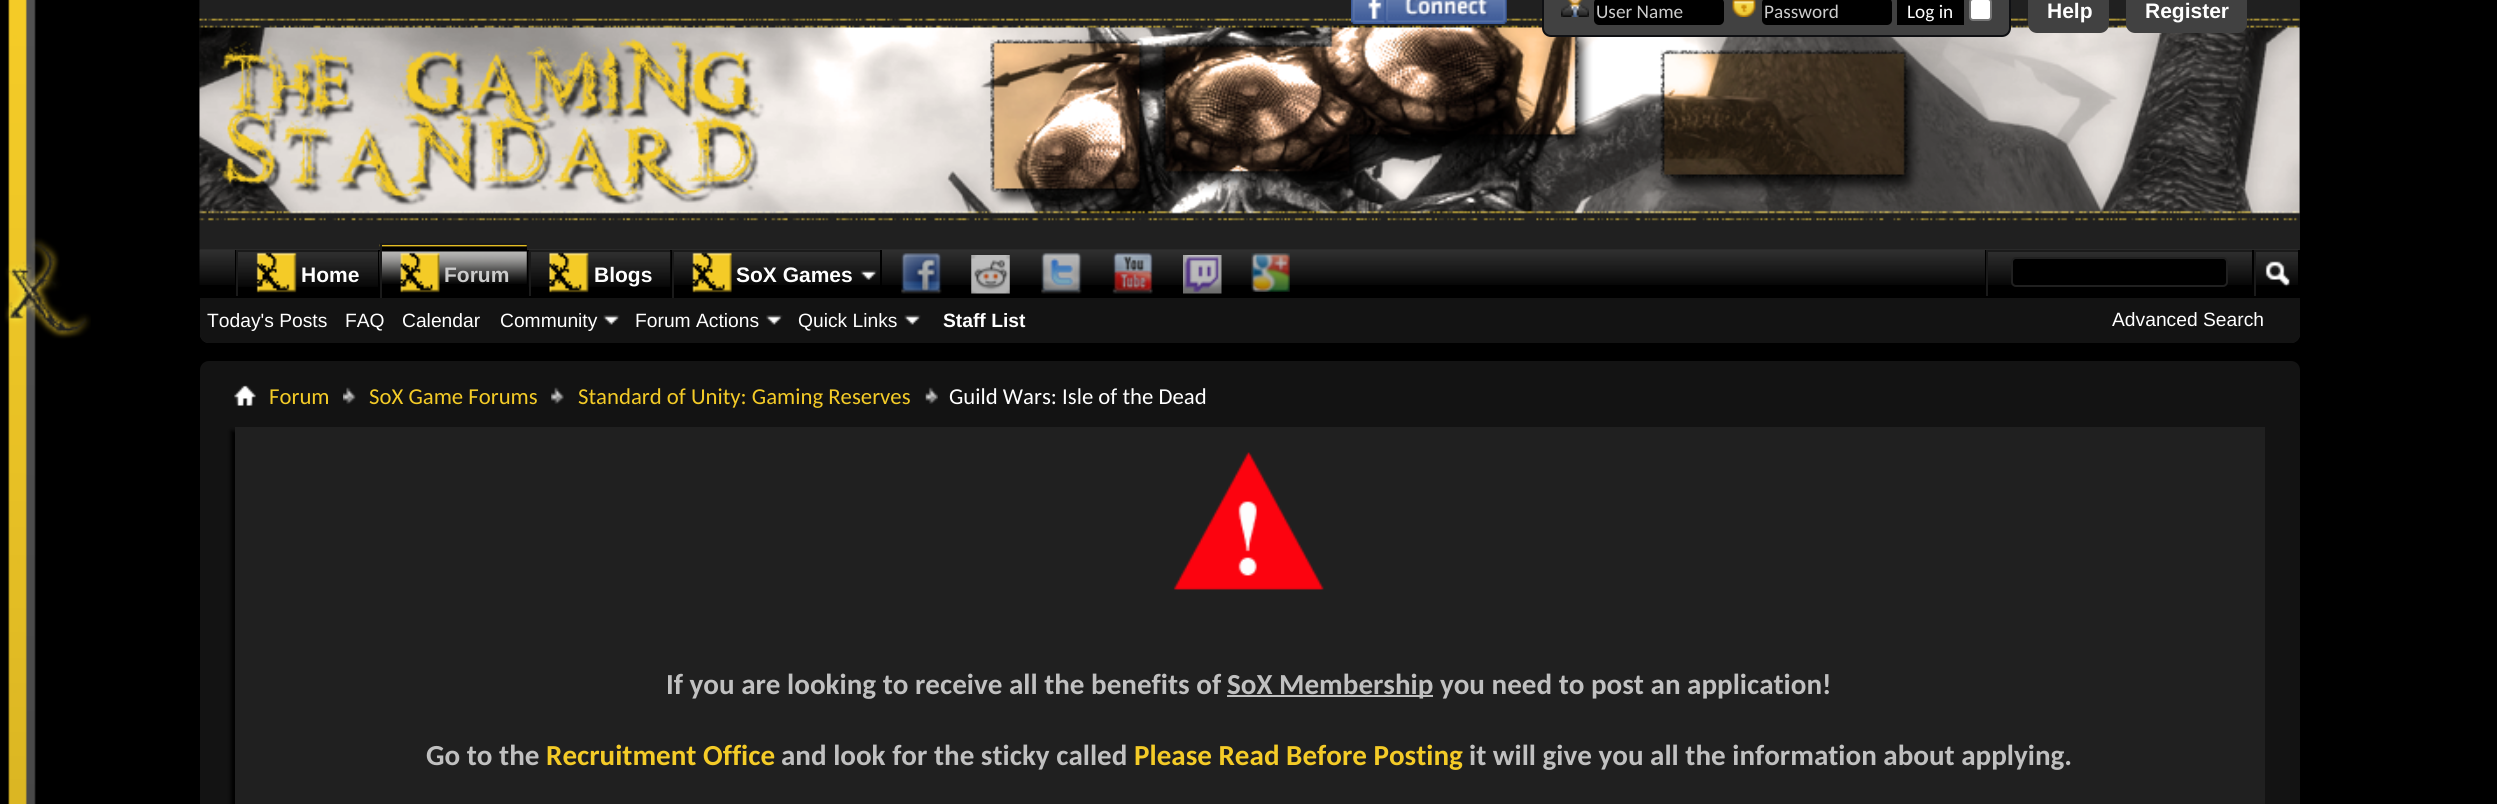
#include <cairo.h>
#include <math.h>
#include <stddef.h>

static cairo_t *ctx;

static void use_color(int r, int g, int b) {
    cairo_set_source_rgb(ctx, r / 255.0, g / 255.0, b / 255.0);
}

static void round_rect(double x, double y, double w, double h, double r) {
    cairo_new_sub_path(ctx);
    cairo_arc(ctx, x + w - r, y + h - r, r, 0, M_PI / 2);
    cairo_arc(ctx, x + r, y + h - r, r, M_PI / 2, M_PI);
    cairo_arc(ctx, x + r, y + r, r, M_PI, 1.5 * M_PI);
    cairo_arc(ctx, x + w - r, y + r, r, 1.5 * M_PI, 2 * M_PI);
    cairo_close_path(ctx);
}

static void shadow(double x, double y, double w, double h, double r, double blur, double alpha) {
    cairo_push_group_with_content(ctx, CAIRO_CONTENT_ALPHA);
    cairo_set_operator(ctx, CAIRO_OPERATOR_SOURCE);
    for (int i = 15; i >= -15 && fmin(w, h) + blur * i / 3 > 0; i -= 2) {
        double e = blur * i / 6;
        cairo_set_source_rgba(ctx, 0, 0, 0, alpha * erfc((i - 1) / 8.5) / 2);
        round_rect(x - e, y - e, w + 2 * e, h + 2 * e, fmax(0, fmin(r + e + blur * .6, fmin(w, h) / 2 + e)));
        cairo_fill(ctx);
    }
    cairo_pattern_t *soft = cairo_pop_group(ctx);
    cairo_mask(ctx, soft);
    cairo_pattern_destroy(soft);
}

static void picture(const char *path, double x, double y, double w, double h) {
    cairo_surface_t *image = cairo_image_surface_create_from_png(path);
    cairo_save(ctx);
    cairo_set_source_surface(ctx, image, x, y);
    cairo_rectangle(ctx, x, y, w, h);
    cairo_fill(ctx);
    cairo_restore(ctx);
    cairo_surface_destroy(image);
}

int main(void) {
    cairo_surface_t *surface = cairo_image_surface_create(CAIRO_FORMAT_RGB24, 2497, 804);
    ctx = cairo_create(surface);
    cairo_font_options_t *options = cairo_font_options_create();
    cairo_font_options_set_hint_metrics(options, CAIRO_HINT_METRICS_OFF);
    cairo_font_options_set_hint_style(options, CAIRO_HINT_STYLE_NONE);
    cairo_set_font_options(ctx, options);
    cairo_set_miter_limit(ctx, 4);
    use_color(0, 0, 0);
    cairo_paint(ctx);
    picture("img1.png", 4, 0, 87, 804);
    use_color(32, 32, 32);
    cairo_new_path(ctx);
    cairo_move_to(ctx, 200, -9);
    cairo_line_to(ctx, 2300, -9);
    cairo_line_to(ctx, 2300, 334);
    cairo_curve_to(ctx, 2300, 339, 2296, 343, 2291, 343);
    cairo_line_to(ctx, 209, 343);
    cairo_curve_to(ctx, 204, 343, 200, 339, 200, 334);
    cairo_close_path(ctx);
    cairo_fill(ctx);
    picture("img2.png", 199, 0, 2101, 177);
    picture("img3.png", 199, 0, 2101, 250);
    picture("img4.png", 1351, 0, 156, 24);
    use_color(65, 65, 65);
    cairo_new_path(ctx);
    cairo_move_to(ctx, 1543, -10);
    cairo_line_to(ctx, 2010, -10);
    cairo_line_to(ctx, 2010, 28);
    cairo_curve_to(ctx, 2010, 32.5, 2006.5, 36, 2002, 36);
    cairo_line_to(ctx, 1551, 36);
    cairo_curve_to(ctx, 1546.5, 36, 1543, 32.5, 1543, 28);
    cairo_close_path(ctx);
    cairo_fill_preserve(ctx);
    use_color(15, 16, 19);
    cairo_stroke(ctx);
    picture("img5.png", 1561, 0, 28, 17);
    use_color(0, 0, 0);
    round_rect(1594, -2, 130, 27, 5);
    cairo_fill(ctx);
    cairo_select_font_face(ctx, "Carlito", CAIRO_FONT_SLANT_NORMAL, CAIRO_FONT_WEIGHT_NORMAL);
    cairo_set_font_size(ctx, 19.25);
    use_color(204, 204, 204);
    cairo_move_to(ctx, 1596, 18);
    cairo_show_text(ctx, "User Name");
    picture("img6.png", 1732, 0, 24, 17);
    use_color(0, 0, 0);
    round_rect(1762, -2, 130, 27, 5);
    cairo_fill(ctx);
    use_color(204, 204, 204);
    cairo_move_to(ctx, 1764, 18);
    cairo_show_text(ctx, "Password");
    use_color(0, 0, 0);
    cairo_rectangle(ctx, 1897, 0, 67, 25);
    cairo_fill(ctx);
    use_color(255, 255, 255);
    cairo_move_to(ctx, 1907, 18);
    cairo_show_text(ctx, "Log in");
    round_rect(1970, -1, 21, 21, 3);
    cairo_fill_preserve(ctx);
    use_color(118, 118, 118);
    cairo_stroke(ctx);
    use_color(65, 65, 65);
    cairo_new_path(ctx);
    cairo_move_to(ctx, 2028, -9);
    cairo_line_to(ctx, 2109, -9);
    cairo_line_to(ctx, 2109, 24);
    cairo_curve_to(ctx, 2109, 29, 2105, 33, 2100, 33);
    cairo_line_to(ctx, 2037, 33);
    cairo_curve_to(ctx, 2032, 33, 2028, 29, 2028, 24);
    cairo_close_path(ctx);
    cairo_fill(ctx);
    cairo_select_font_face(ctx, "Liberation Sans", CAIRO_FONT_SLANT_NORMAL, CAIRO_FONT_WEIGHT_BOLD);
    cairo_set_font_size(ctx, 21);
    use_color(255, 255, 255);
    cairo_move_to(ctx, 2047, 18);
    cairo_show_text(ctx, "Help");
    use_color(65, 65, 65);
    cairo_new_path(ctx);
    cairo_move_to(ctx, 2126, -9);
    cairo_line_to(ctx, 2247, -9);
    cairo_line_to(ctx, 2247, 24);
    cairo_curve_to(ctx, 2247, 29, 2243, 33, 2238, 33);
    cairo_line_to(ctx, 2135, 33);
    cairo_curve_to(ctx, 2130, 33, 2126, 29, 2126, 24);
    cairo_close_path(ctx);
    cairo_fill(ctx);
    use_color(255, 255, 255);
    cairo_move_to(ctx, 2145, 18);
    cairo_show_text(ctx, "Register");
    use_color(19, 19, 19);
    cairo_new_path(ctx);
    cairo_move_to(ctx, 200, 250);
    cairo_line_to(ctx, 2300, 250);
    cairo_line_to(ctx, 2300, 334);
    cairo_curve_to(ctx, 2300, 339, 2296, 343, 2291, 343);
    cairo_line_to(ctx, 209, 343);
    cairo_curve_to(ctx, 204, 343, 200, 339, 200, 334);
    cairo_close_path(ctx);
    cairo_fill(ctx);
    use_color(0, 0, 0);
    cairo_rectangle(ctx, 200, 250, 2098, 46);
    cairo_fill(ctx);
    picture("img7.png", 199, 249, 2101, 36);
    cairo_rectangle(ctx, 670, 250, 2, 48);
    cairo_fill(ctx);
    cairo_rectangle(ctx, 531, 252, 139, 33);
    cairo_fill(ctx);
    cairo_rectangle(ctx, 527, 250, 2, 35);
    cairo_fill(ctx);
    picture("img8.png", 528, 251, 143, 36);
    use_color(26, 26, 26);
    cairo_rectangle(ctx, 529, 250, 141, 2);
    cairo_fill(ctx);
    cairo_rectangle(ctx, 529, 250, 2, 48);
    cairo_fill(ctx);
    picture("img9.png", 549, 252, 40, 41);
    use_color(255, 255, 255);
    cairo_move_to(ctx, 594, 282);
    cairo_show_text(ctx, "Blogs");
    picture("img10.png", 901, 253, 41, 41);
    picture("img11.png", 971, 255, 39, 39);
    picture("img12.png", 1041, 252, 41, 42);
    picture("img13.png", 1112, 252, 41, 42);
    picture("img14.png", 1183, 255, 39, 39);
    picture("img15.png", 1251, 253, 39, 39);
    use_color(0, 0, 0);
    cairo_rectangle(ctx, 382, 245, 145, 40);
    cairo_fill(ctx);
    cairo_rectangle(ctx, 378, 250, 2, 48);
    cairo_fill(ctx);
    picture("img16.png", 379, 244, 148, 40);
    use_color(26, 26, 26);
    cairo_rectangle(ctx, 380, 243, 147, 2);
    cairo_fill(ctx);
    use_color(0, 0, 0);
    cairo_rectangle(ctx, 235, 250, 1, 48);
    cairo_fill(ctx);
    use_color(26, 26, 26);
    cairo_rectangle(ctx, 236, 250, 142, 2);
    cairo_fill(ctx);
    cairo_rectangle(ctx, 236, 250, 2, 48);
    cairo_fill(ctx);
    use_color(0, 0, 0);
    cairo_rectangle(ctx, 200, 296, 2100, 2);
    cairo_fill(ctx);
    use_color(26, 26, 26);
    cairo_rectangle(ctx, 380, 243, 2, 55);
    cairo_fill(ctx);
    picture("img17.png", 400, 252, 40, 41);
    use_color(204, 204, 204);
    cairo_move_to(ctx, 444, 282);
    cairo_show_text(ctx, "Forum");
    cairo_select_font_face(ctx, "Liberation Sans", CAIRO_FONT_SLANT_NORMAL, CAIRO_FONT_WEIGHT_NORMAL);
    cairo_set_font_size(ctx, 19.25);
    use_color(255, 255, 255);
    cairo_move_to(ctx, 207, 327);
    cairo_show_text(ctx, "Today's Posts");
    cairo_move_to(ctx, 345, 327);
    cairo_show_text(ctx, "FAQ");
    cairo_move_to(ctx, 402, 327);
    cairo_show_text(ctx, "Calendar");
    cairo_move_to(ctx, 500, 327);
    cairo_show_text(ctx, "Community");
    picture("img18.png", 603, 315, 17, 10);
    cairo_move_to(ctx, 635, 327);
    cairo_show_text(ctx, "Forum Actions");
    picture("img19.png", 766, 315, 17, 10);
    cairo_move_to(ctx, 798, 327);
    cairo_show_text(ctx, "Quick Links");
    picture("img20.png", 904, 315, 17, 10);
    cairo_select_font_face(ctx, "Liberation Sans", CAIRO_FONT_SLANT_NORMAL, CAIRO_FONT_WEIGHT_BOLD);
    cairo_move_to(ctx, 943, 327);
    cairo_show_text(ctx, "Staff List");
    use_color(0, 0, 0);
    cairo_rectangle(ctx, 238, 252, 140, 33);
    cairo_fill(ctx);
    picture("img21.png", 238, 252, 140, 35);
    picture("img22.png", 256, 252, 41, 41);
    cairo_set_font_size(ctx, 21);
    use_color(255, 255, 255);
    cairo_move_to(ctx, 301, 282);
    cairo_show_text(ctx, "Home");
    use_color(0, 0, 0);
    cairo_rectangle(ctx, 880, 250, 2, 35);
    cairo_fill(ctx);
    picture("img23.png", 860, 270, 17, 10);
    use_color(26, 26, 26);
    cairo_rectangle(ctx, 672, 250, 208, 2);
    cairo_fill(ctx);
    cairo_rectangle(ctx, 672, 250, 2, 48);
    cairo_fill(ctx);
    picture("img24.png", 692, 252, 40, 41);
    use_color(255, 255, 255);
    cairo_move_to(ctx, 736, 282);
    cairo_show_text(ctx, "SoX Games");
    use_color(0, 0, 0);
    cairo_rectangle(ctx, 1985, 250, 1, 35);
    cairo_fill(ctx);
    use_color(26, 26, 26);
    cairo_rectangle(ctx, 1986, 250, 266, 2);
    cairo_fill(ctx);
    cairo_rectangle(ctx, 1986, 250, 2, 46);
    cairo_fill(ctx);
    use_color(0, 0, 0);
    round_rect(2012, 258, 215, 28, 4);
    cairo_fill_preserve(ctx);
    use_color(32, 32, 32);
    cairo_stroke(ctx);
    use_color(0, 0, 0);
    cairo_rectangle(ctx, 2298, 250, 2, 46);
    cairo_fill(ctx);
    cairo_rectangle(ctx, 2252, 250, 2, 35);
    cairo_fill(ctx);
    use_color(26, 26, 26);
    cairo_rectangle(ctx, 2254, 250, 44, 2);
    cairo_fill(ctx);
    cairo_rectangle(ctx, 2254, 250, 2, 46);
    cairo_fill(ctx);
    picture("img25.png", 2265, 261, 25, 26);
    cairo_select_font_face(ctx, "Liberation Sans", CAIRO_FONT_SLANT_NORMAL, CAIRO_FONT_WEIGHT_NORMAL);
    cairo_set_font_size(ctx, 19.25);
    use_color(255, 255, 255);
    cairo_move_to(ctx, 2112, 326);
    cairo_show_text(ctx, "Advanced Search");
    use_color(19, 19, 19);
    round_rect(200, 361, 2100, 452, 9);
    cairo_fill(ctx);
    picture("img26.png", 234, 385, 22, 21);
    picture("img27.png", 343, 387, 13, 17);
    cairo_select_font_face(ctx, "Carlito", CAIRO_FONT_SLANT_NORMAL, CAIRO_FONT_WEIGHT_NORMAL);
    cairo_set_font_size(ctx, 22.75);
    use_color(244, 203, 39);
    cairo_move_to(ctx, 269, 404);
    cairo_show_text(ctx, "Forum");
    picture("img28.png", 551, 387, 13, 17);
    cairo_move_to(ctx, 369, 404);
    cairo_show_text(ctx, "SoX Game Forums");
    picture("img29.png", 925, 387, 13, 17);
    cairo_move_to(ctx, 578, 404);
    cairo_show_text(ctx, "Standard of Unity: Gaming Reserves");
    use_color(255, 255, 255);
    cairo_move_to(ctx, 949, 404);
    cairo_show_text(ctx, "Guild Wars: Isle of the Dead");
    use_color(0, 0, 0);
    shadow(231, 431, 2030, 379, 0, 2, 1);
    use_color(32, 32, 32);
    cairo_rectangle(ctx, 235, 427, 2030, 377);
    cairo_fill(ctx);
    picture("img30.png", 1173, 452, 151, 138);
    cairo_select_font_face(ctx, "Carlito", CAIRO_FONT_SLANT_NORMAL, CAIRO_FONT_WEIGHT_BOLD);
    cairo_set_font_size(ctx, 29.1);
    use_color(192, 192, 192);
    cairo_move_to(ctx, 666, 694);
    cairo_show_text(ctx, "If you are looking to receive all the benefits of");
    cairo_rectangle(ctx, 1227, 695, 206, 2);
    cairo_fill(ctx);
    cairo_move_to(ctx, 1227, 694);
    cairo_show_text(ctx, "SoX Membership you need to post an application!");
    cairo_move_to(ctx, 426, 765);
    cairo_show_text(ctx, "Go to the");
    use_color(244, 203, 39);
    cairo_move_to(ctx, 546, 765);
    cairo_show_text(ctx, "Recruitment Office");
    use_color(192, 192, 192);
    cairo_move_to(ctx, 781, 765);
    cairo_show_text(ctx, "and look for the sticky called");
    use_color(244, 203, 39);
    cairo_move_to(ctx, 1134, 765);
    cairo_show_text(ctx, "Please Read Before Posting");
    use_color(192, 192, 192);
    cairo_move_to(ctx, 1469, 765);
    cairo_show_text(ctx, "it will give you all the information about applying.");
    cairo_surface_write_to_png(surface, "result.png");
    cairo_font_options_destroy(options);
    cairo_destroy(ctx);
    cairo_surface_destroy(surface);
    return 0;
}
